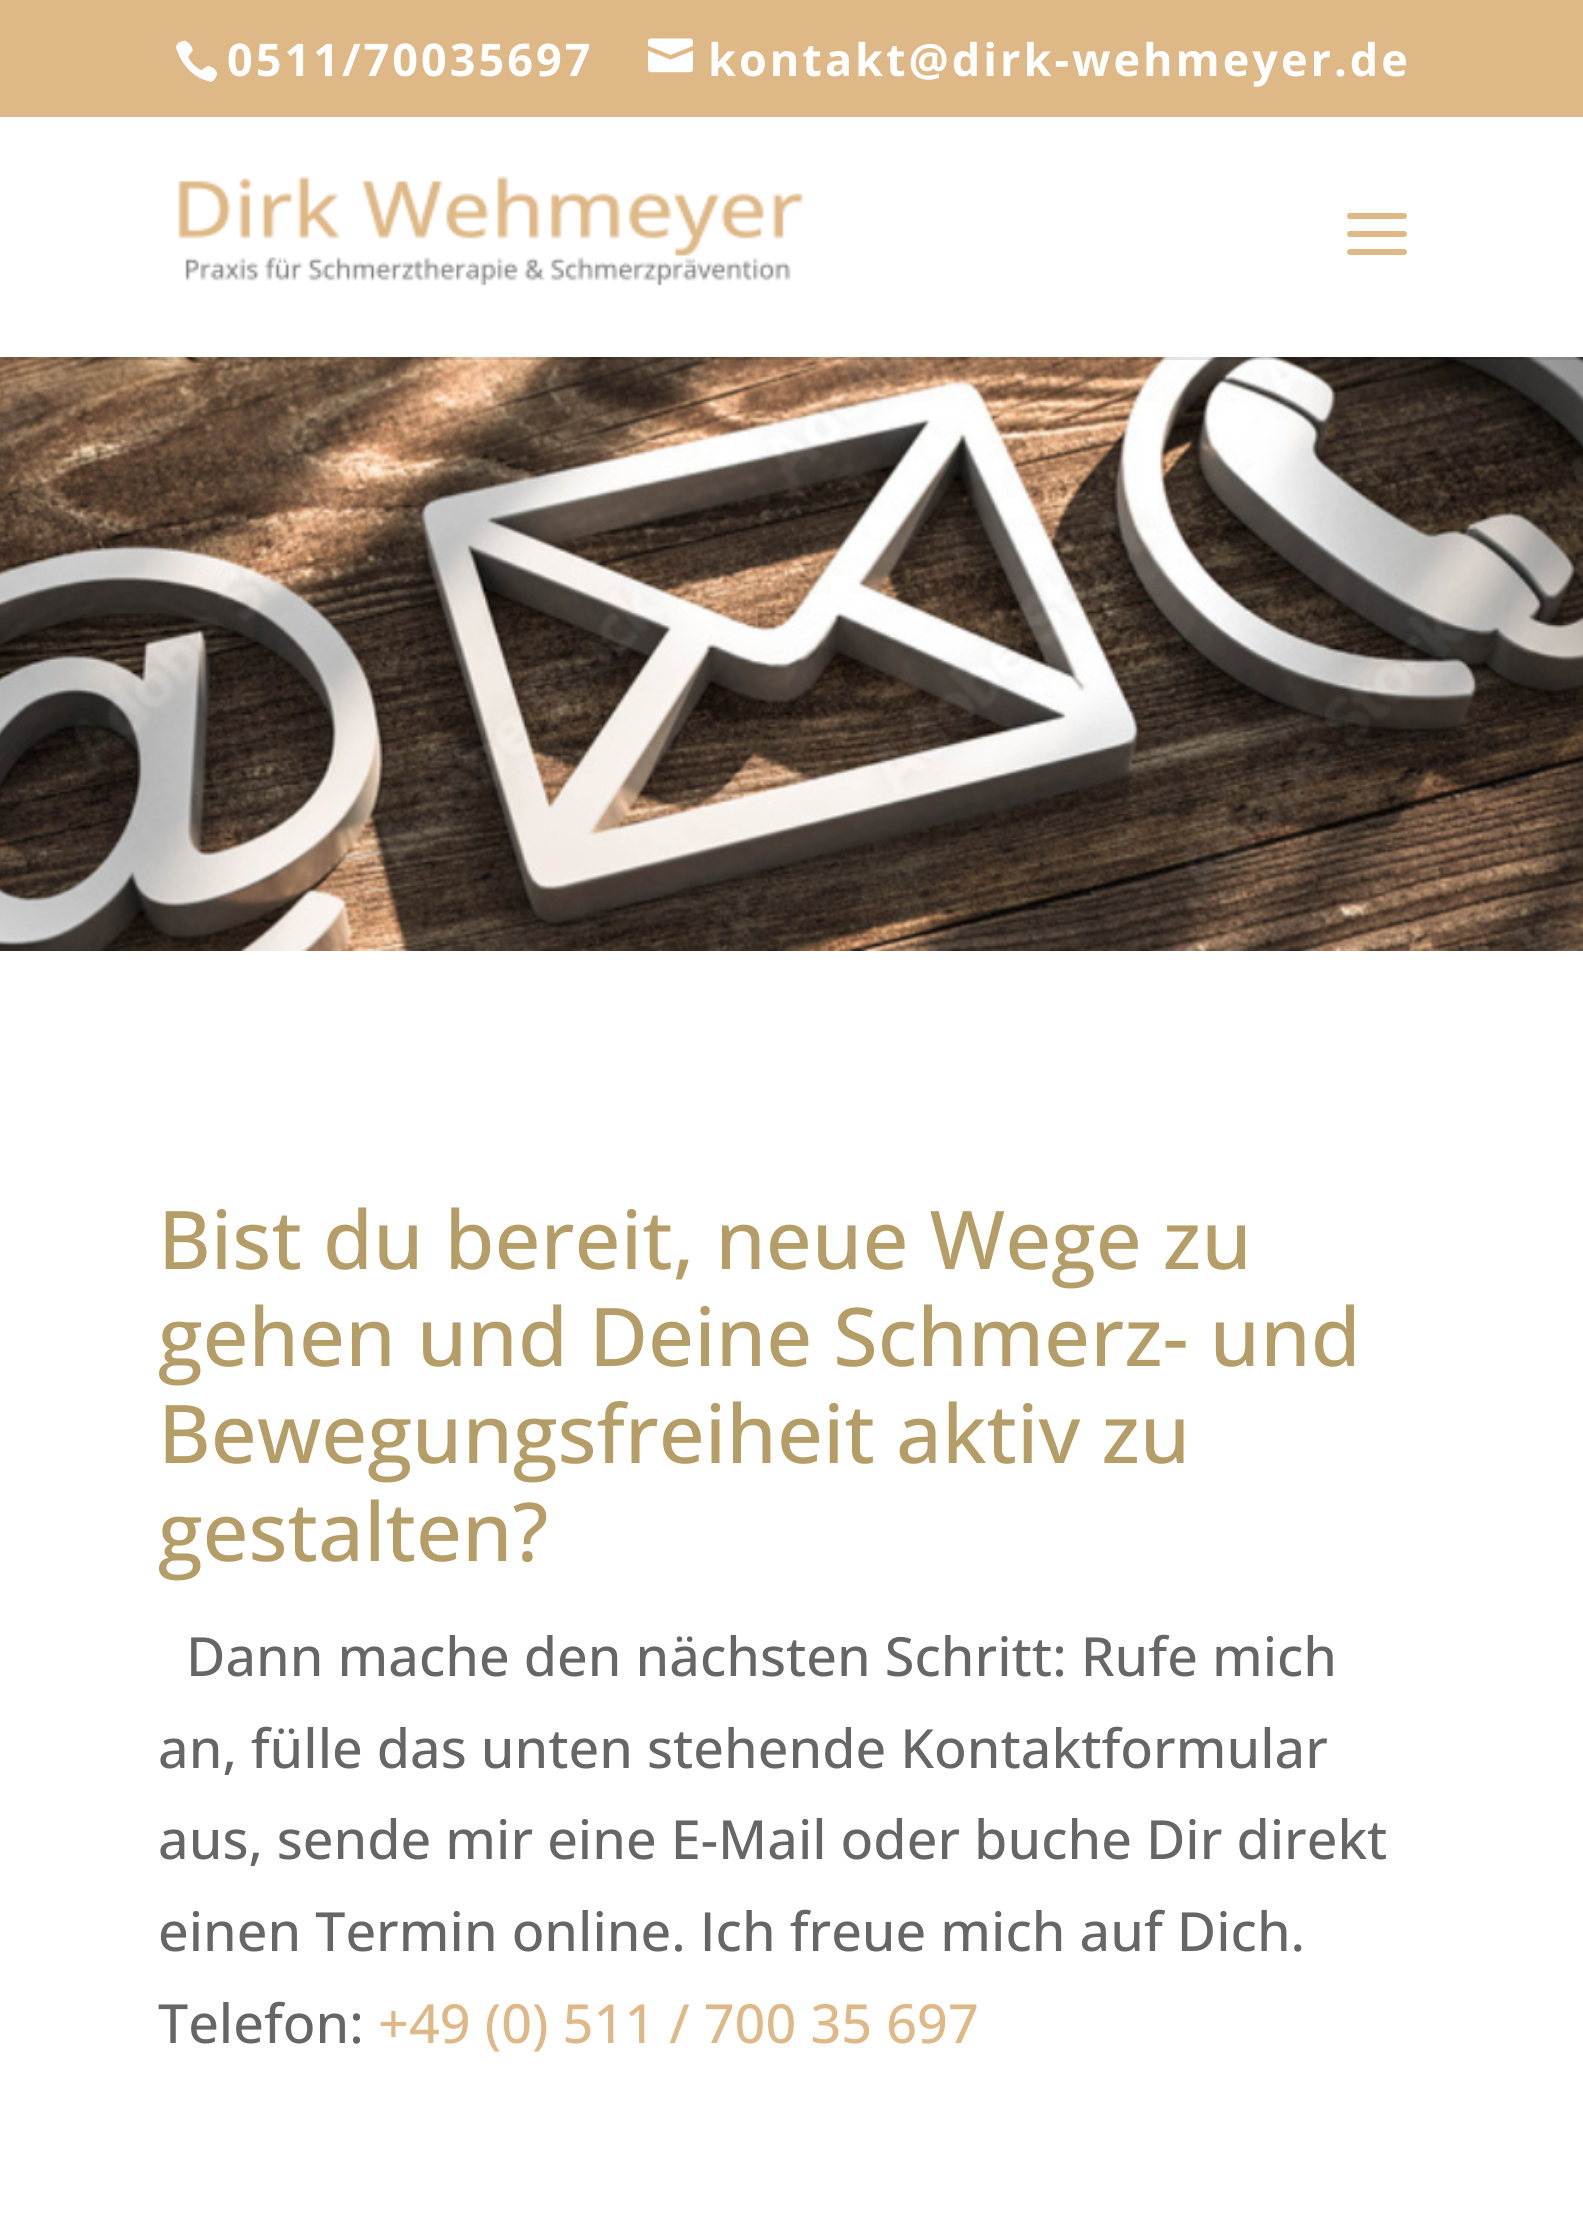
#include <cairo.h>
#include <math.h>
#include <stddef.h>

static cairo_t *ctx;

static void use_color(int r, int g, int b) {
    cairo_set_source_rgb(ctx, r / 255.0, g / 255.0, b / 255.0);
}

static void spaced_text(double x, double y, const char *s, double letter, double word) {
    cairo_move_to(ctx, x, y);
    while (*s) {
        char ch[5] = {0};
        int n = 0;
        do ch[n++] = *s++; while ((*s & 0xC0) == 0x80);
        cairo_show_text(ctx, ch);
        cairo_rel_move_to(ctx, letter + word * (*ch == ' '), 0);
    }
}

static void picture(const char *path, double x, double y, double w, double h) {
    cairo_surface_t *image = cairo_image_surface_create_from_png(path);
    cairo_save(ctx);
    cairo_set_source_surface(ctx, image, x, y);
    cairo_rectangle(ctx, x, y, w, h);
    cairo_fill(ctx);
    cairo_restore(ctx);
    cairo_surface_destroy(image);
}

int main(void) {
    cairo_surface_t *surface = cairo_image_surface_create(CAIRO_FORMAT_RGB24, 1583, 2215);
    ctx = cairo_create(surface);
    cairo_font_options_t *options = cairo_font_options_create();
    cairo_font_options_set_hint_metrics(options, CAIRO_HINT_METRICS_OFF);
    cairo_font_options_set_hint_style(options, CAIRO_HINT_STYLE_NONE);
    cairo_set_font_options(ctx, options);
    cairo_set_miter_limit(ctx, 4);
    use_color(255, 255, 255);
    cairo_paint(ctx);
    use_color(222, 184, 135);
    cairo_rectangle(ctx, 0, 0, 1583, 117);
    cairo_fill(ctx);
    picture("img1.png", 175, 40, 43, 42);
    cairo_select_font_face(ctx, "Open Sans", CAIRO_FONT_SLANT_NORMAL, CAIRO_FONT_WEIGHT_BOLD);
    cairo_set_font_size(ctx, 45);
    use_color(255, 255, 255);
    spaced_text(227, 76, "0511/70035697", 3, 0);
    picture("img2.png", 648, 38, 45, 35);
    spaced_text(708, 76, "kontakt@dirk-wehmeyer.de", 3, 0);
    picture("img5.png", 0, 357, 1583, 594);
    cairo_set_source_rgba(ctx, 0, 0, 0, 0.1);
    cairo_rectangle(ctx, 0, 357, 1583, 3);
    cairo_fill(ctx);
    picture("img3.png", 178, 176, 625, 111);
    picture("img4.png", 1347, 213, 60, 42);
    cairo_select_font_face(ctx, "Open Sans Medium", CAIRO_FONT_SLANT_NORMAL, CAIRO_FONT_WEIGHT_NORMAL);
    cairo_set_font_size(ctx, 81);
    use_color(181, 157, 103);
    cairo_move_to(ctx, 158, 1269);
    cairo_show_text(ctx, "Bist du bereit, neue Wege zu");
    cairo_move_to(ctx, 158, 1366);
    cairo_show_text(ctx, "gehen und Deine Schmerz- und");
    cairo_move_to(ctx, 158, 1463);
    cairo_show_text(ctx, "Bewegungsfreiheit aktiv zu");
    cairo_move_to(ctx, 158, 1561);
    cairo_show_text(ctx, "gestalten?");
    cairo_set_font_size(ctx, 54);
    use_color(102, 102, 102);
    cairo_move_to(ctx, 186, 1676);
    cairo_show_text(ctx, "Dann mache den nächsten Schritt: Rufe mich");
    cairo_move_to(ctx, 158, 1768);
    cairo_show_text(ctx, "an, fülle das unten stehende Kontaktformular");
    cairo_move_to(ctx, 158, 1859);
    cairo_show_text(ctx, "aus, sende mir eine E-Mail oder buche Dir direkt");
    cairo_move_to(ctx, 158, 1951);
    cairo_show_text(ctx, "einen Termin online. Ich freue mich auf Dich.");
    cairo_move_to(ctx, 158, 2043);
    cairo_show_text(ctx, "Telefon:");
    use_color(222, 184, 135);
    cairo_move_to(ctx, 378, 2043);
    cairo_show_text(ctx, "+49 (0) 511 / 700 35 697");
    cairo_surface_write_to_png(surface, "result.png");
    cairo_font_options_destroy(options);
    cairo_destroy(ctx);
    cairo_surface_destroy(surface);
    return 0;
}
